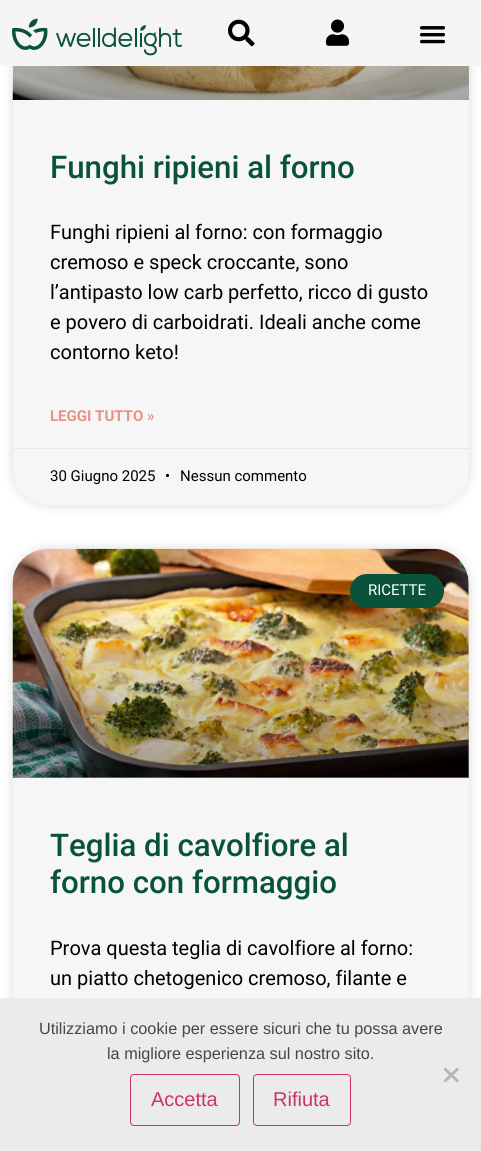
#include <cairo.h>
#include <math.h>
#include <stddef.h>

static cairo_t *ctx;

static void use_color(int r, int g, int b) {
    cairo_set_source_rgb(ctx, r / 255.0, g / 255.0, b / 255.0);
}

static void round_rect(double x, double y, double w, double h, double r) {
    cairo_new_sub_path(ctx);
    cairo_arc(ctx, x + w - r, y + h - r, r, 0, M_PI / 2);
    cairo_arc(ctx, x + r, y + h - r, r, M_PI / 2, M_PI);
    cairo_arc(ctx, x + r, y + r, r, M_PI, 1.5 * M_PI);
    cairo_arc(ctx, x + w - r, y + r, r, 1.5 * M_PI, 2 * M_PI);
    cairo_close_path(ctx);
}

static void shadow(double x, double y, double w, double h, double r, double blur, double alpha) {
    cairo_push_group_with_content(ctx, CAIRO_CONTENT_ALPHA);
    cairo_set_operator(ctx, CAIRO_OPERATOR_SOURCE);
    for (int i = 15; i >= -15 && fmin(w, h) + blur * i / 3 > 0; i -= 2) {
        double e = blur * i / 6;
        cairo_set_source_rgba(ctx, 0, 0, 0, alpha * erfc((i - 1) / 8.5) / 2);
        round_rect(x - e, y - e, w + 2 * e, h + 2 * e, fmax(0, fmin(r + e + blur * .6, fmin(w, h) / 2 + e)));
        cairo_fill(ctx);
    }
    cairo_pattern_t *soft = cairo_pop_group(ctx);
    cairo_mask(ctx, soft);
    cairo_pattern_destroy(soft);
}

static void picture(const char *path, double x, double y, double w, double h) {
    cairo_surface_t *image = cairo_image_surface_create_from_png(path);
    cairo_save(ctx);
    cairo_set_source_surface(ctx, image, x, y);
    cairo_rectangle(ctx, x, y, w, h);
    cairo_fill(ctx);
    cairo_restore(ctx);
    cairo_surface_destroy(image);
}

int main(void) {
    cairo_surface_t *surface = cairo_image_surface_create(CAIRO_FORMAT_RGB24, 481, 1151);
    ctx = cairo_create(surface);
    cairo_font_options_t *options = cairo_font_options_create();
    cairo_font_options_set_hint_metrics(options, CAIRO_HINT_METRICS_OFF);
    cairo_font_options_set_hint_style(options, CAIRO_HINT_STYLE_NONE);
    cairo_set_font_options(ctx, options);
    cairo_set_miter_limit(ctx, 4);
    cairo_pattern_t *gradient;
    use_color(255, 255, 255);
    cairo_paint(ctx);
    use_color(0, 0, 0);
    shadow(13, -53, 456, 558, 35, 6, 0.15);
    use_color(246, 246, 246);
    round_rect(13, -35, 456, 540, 35);
    cairo_fill(ctx);
    use_color(245, 245, 245);
    cairo_rectangle(ctx, 0, 0, 481, 66);
    cairo_fill(ctx);
    picture("img1.png", 12, 18, 171, 38);
    picture("img2.png", 228, 19, 27, 28);
    picture("img3.png", 326, 19, 23, 27);
    picture("img4.png", 419, 26, 27, 18);
    picture("img5.png", 12, 66, 457, 34);
    gradient = cairo_pattern_create_linear(241, 100, 241, -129);
    cairo_pattern_add_color_stop_rgba(gradient, 0, 0, 0, 0, 0.35);
    cairo_pattern_add_color_stop_rgba(gradient, 0.75, 0, 0, 0, 0);
    cairo_set_source(ctx, gradient);
    cairo_pattern_destroy(gradient);
    cairo_rectangle(ctx, 13, 66, 456, 34);
    cairo_fill(ctx);
    cairo_select_font_face(ctx, "Roboto Medium", CAIRO_FONT_SLANT_NORMAL, CAIRO_FONT_WEIGHT_NORMAL);
    cairo_set_font_size(ctx, 31.25);
    use_color(9, 83, 60);
    cairo_move_to(ctx, 50, 178);
    cairo_show_text(ctx, "Funghi ripieni al forno");
    cairo_select_font_face(ctx, "Roboto", CAIRO_FONT_SLANT_NORMAL, CAIRO_FONT_WEIGHT_NORMAL);
    cairo_set_font_size(ctx, 20);
    use_color(0, 0, 0);
    cairo_move_to(ctx, 50, 239);
    cairo_show_text(ctx, "Funghi ripieni al forno: con formaggio");
    cairo_move_to(ctx, 50, 269);
    cairo_show_text(ctx, "cremoso e speck croccante, sono");
    cairo_move_to(ctx, 50, 299);
    cairo_show_text(ctx, "l’antipasto low carb perfetto, ricco di gusto");
    cairo_move_to(ctx, 50, 329);
    cairo_show_text(ctx, "e povero di carboidrati. Ideali anche come");
    cairo_move_to(ctx, 50, 359);
    cairo_show_text(ctx, "contorno keto!");
    cairo_select_font_face(ctx, "Roboto", CAIRO_FONT_SLANT_NORMAL, CAIRO_FONT_WEIGHT_BOLD);
    cairo_set_font_size(ctx, 15);
    use_color(234, 145, 129);
    cairo_move_to(ctx, 50, 421);
    cairo_show_text(ctx, "LEGGI TUTTO »");
    use_color(234, 234, 234);
    cairo_rectangle(ctx, 13, 448, 456, 1);
    cairo_fill(ctx);
    cairo_select_font_face(ctx, "Roboto", CAIRO_FONT_SLANT_NORMAL, CAIRO_FONT_WEIGHT_NORMAL);
    use_color(0, 0, 0);
    cairo_move_to(ctx, 50, 481);
    cairo_show_text(ctx, "30 Giugno 2025");
    cairo_move_to(ctx, 165, 481);
    cairo_show_text(ctx, "•");
    cairo_move_to(ctx, 180, 481);
    cairo_show_text(ctx, "Nessun commento");
    use_color(0, 0, 0);
    shadow(13, 549, 456, 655, 35, 6, 0.15);
    use_color(246, 246, 246);
    round_rect(13, 549, 456, 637, 35);
    cairo_fill(ctx);
    picture("img6.png", 12, 548, 457, 230);
    gradient = cairo_pattern_create_linear(241, 778, 241, 549);
    cairo_pattern_add_color_stop_rgba(gradient, 0, 0, 0, 0, 0.35);
    cairo_pattern_add_color_stop_rgba(gradient, 0.75, 0, 0, 0, 0);
    cairo_set_source(ctx, gradient);
    cairo_pattern_destroy(gradient);
    cairo_rectangle(ctx, 13, 617, 456, 161);
    cairo_fill(ctx);
    use_color(9, 83, 60);
    round_rect(350, 574, 94, 34, 17);
    cairo_fill(ctx);
    use_color(255, 255, 255);
    cairo_move_to(ctx, 368, 595);
    cairo_show_text(ctx, "RICETTE");
    cairo_select_font_face(ctx, "Roboto Medium", CAIRO_FONT_SLANT_NORMAL, CAIRO_FONT_WEIGHT_NORMAL);
    cairo_set_font_size(ctx, 31.25);
    use_color(9, 83, 60);
    cairo_move_to(ctx, 50, 856);
    cairo_show_text(ctx, "Teglia di cavolfiore al");
    cairo_move_to(ctx, 50, 893);
    cairo_show_text(ctx, "forno con formaggio");
    cairo_select_font_face(ctx, "Roboto", CAIRO_FONT_SLANT_NORMAL, CAIRO_FONT_WEIGHT_NORMAL);
    cairo_set_font_size(ctx, 20);
    use_color(0, 0, 0);
    cairo_move_to(ctx, 50, 955);
    cairo_show_text(ctx, "Prova questa teglia di cavolfiore al forno:");
    cairo_move_to(ctx, 50, 985);
    cairo_show_text(ctx, "un piatto chetogenico cremoso, filante e");
    cairo_set_source_rgba(ctx, 0.918, 0.918, 0.918, 0.95);
    cairo_rectangle(ctx, 0, 998, 481, 153);
    cairo_fill(ctx);
    cairo_select_font_face(ctx, "Liberation Sans", CAIRO_FONT_SLANT_NORMAL, CAIRO_FONT_WEIGHT_NORMAL);
    cairo_set_font_size(ctx, 16.25);
    use_color(70, 70, 70);
    cairo_move_to(ctx, 39, 1034);
    cairo_show_text(ctx, "Utilizziamo i cookie per essere sicuri che tu possa avere");
    cairo_move_to(ctx, 107, 1059);
    cairo_show_text(ctx, "la migliore esperienza sul nostro sito.");
    use_color(181, 181, 181);
    cairo_new_path(ctx);
    cairo_move_to(ctx, 457, 1067.5);
    cairo_line_to(ctx, 459, 1069.5);
    cairo_line_to(ctx, 445.5, 1082.5);
    cairo_line_to(ctx, 443.5, 1080.5);
    cairo_close_path(ctx);
    cairo_fill(ctx);
    cairo_new_path(ctx);
    cairo_move_to(ctx, 443.5, 1069.5);
    cairo_line_to(ctx, 445.5, 1067.5);
    cairo_line_to(ctx, 459, 1080.5);
    cairo_line_to(ctx, 457, 1082.5);
    cairo_close_path(ctx);
    cairo_fill(ctx);
    round_rect(130.5, 1074.5, 109, 51, 3.5);
    use_color(204, 51, 102);
    cairo_set_line_width(ctx, 1);
    cairo_stroke(ctx);
    cairo_set_font_size(ctx, 20);
    cairo_move_to(ctx, 151, 1106);
    cairo_show_text(ctx, "Accetta");
    round_rect(253.5, 1074.5, 97, 51, 3.5);
    cairo_stroke(ctx);
    cairo_move_to(ctx, 273, 1106);
    cairo_show_text(ctx, "Rifiuta");
    cairo_surface_write_to_png(surface, "result.png");
    cairo_font_options_destroy(options);
    cairo_destroy(ctx);
    cairo_surface_destroy(surface);
    return 0;
}
